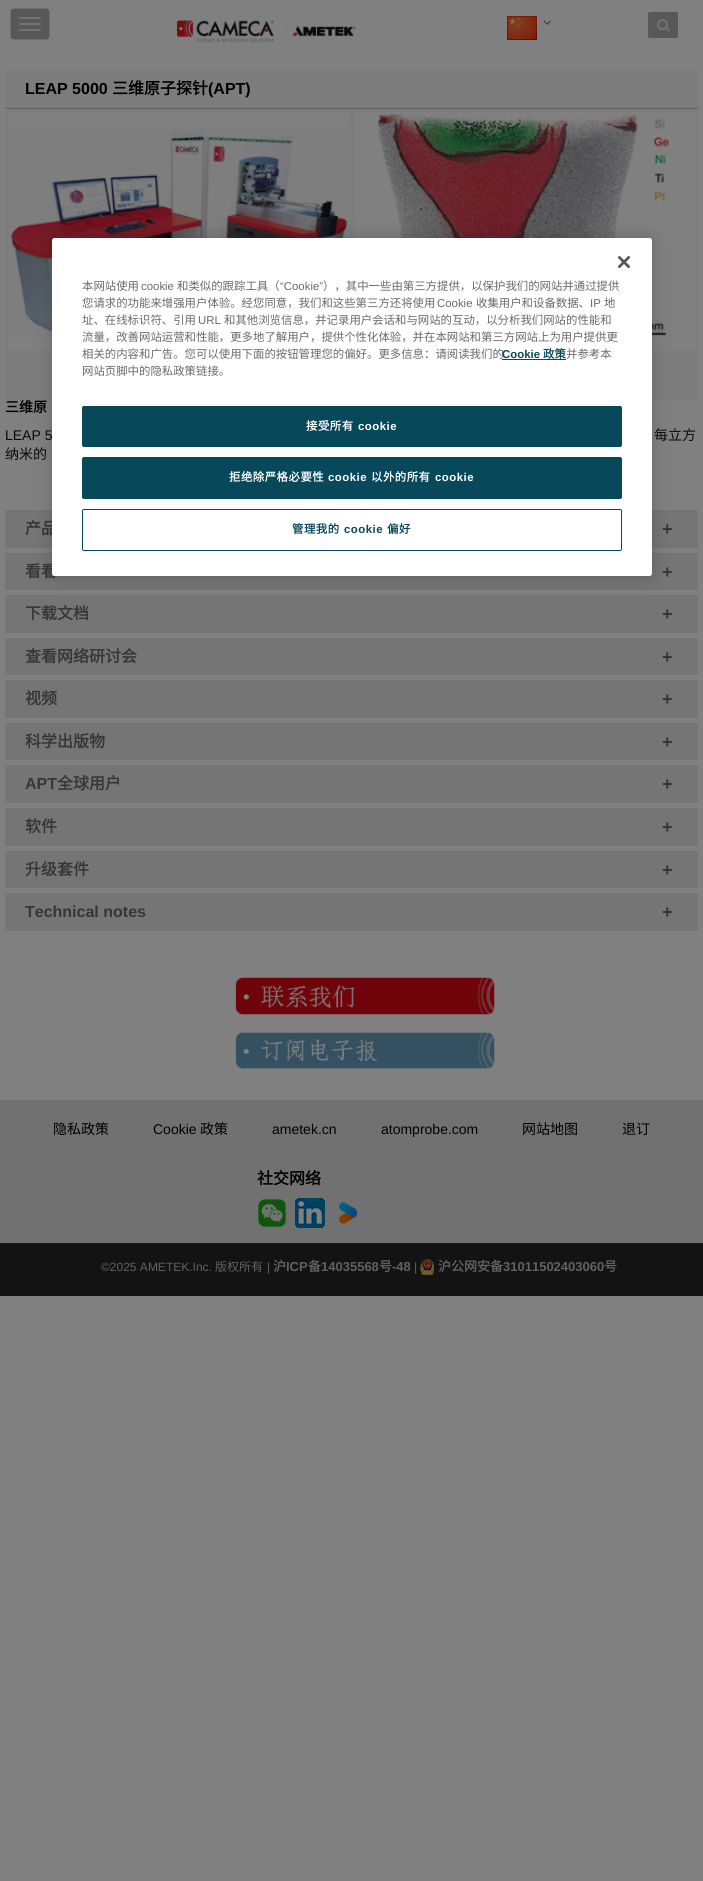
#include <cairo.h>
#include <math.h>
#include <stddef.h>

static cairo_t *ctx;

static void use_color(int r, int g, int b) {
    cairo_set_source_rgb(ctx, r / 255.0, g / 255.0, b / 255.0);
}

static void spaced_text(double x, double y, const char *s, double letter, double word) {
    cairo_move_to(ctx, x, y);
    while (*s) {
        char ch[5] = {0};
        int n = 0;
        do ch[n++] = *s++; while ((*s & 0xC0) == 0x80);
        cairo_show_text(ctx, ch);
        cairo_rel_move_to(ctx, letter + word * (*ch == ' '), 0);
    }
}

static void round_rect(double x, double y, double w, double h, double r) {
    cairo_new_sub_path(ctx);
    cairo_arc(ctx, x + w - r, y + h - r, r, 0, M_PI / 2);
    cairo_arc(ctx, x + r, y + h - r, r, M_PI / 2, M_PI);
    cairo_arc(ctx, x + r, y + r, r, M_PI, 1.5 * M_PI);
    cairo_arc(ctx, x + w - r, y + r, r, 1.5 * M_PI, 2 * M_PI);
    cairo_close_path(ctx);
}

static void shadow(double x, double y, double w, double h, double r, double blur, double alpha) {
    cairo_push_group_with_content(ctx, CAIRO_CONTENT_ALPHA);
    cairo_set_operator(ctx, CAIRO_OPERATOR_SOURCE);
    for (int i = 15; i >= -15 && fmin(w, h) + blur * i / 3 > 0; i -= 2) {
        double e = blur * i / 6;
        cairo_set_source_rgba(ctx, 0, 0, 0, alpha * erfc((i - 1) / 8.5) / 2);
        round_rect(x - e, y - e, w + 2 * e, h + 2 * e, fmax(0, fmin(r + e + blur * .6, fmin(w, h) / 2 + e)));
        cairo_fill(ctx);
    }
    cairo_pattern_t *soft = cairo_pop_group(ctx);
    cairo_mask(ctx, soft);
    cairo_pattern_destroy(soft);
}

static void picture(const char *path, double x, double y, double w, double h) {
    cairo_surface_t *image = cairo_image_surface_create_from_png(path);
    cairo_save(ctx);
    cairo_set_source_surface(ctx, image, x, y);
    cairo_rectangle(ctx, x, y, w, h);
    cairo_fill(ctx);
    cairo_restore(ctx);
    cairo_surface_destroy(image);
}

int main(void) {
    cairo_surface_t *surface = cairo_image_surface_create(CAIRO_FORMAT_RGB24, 703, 1881);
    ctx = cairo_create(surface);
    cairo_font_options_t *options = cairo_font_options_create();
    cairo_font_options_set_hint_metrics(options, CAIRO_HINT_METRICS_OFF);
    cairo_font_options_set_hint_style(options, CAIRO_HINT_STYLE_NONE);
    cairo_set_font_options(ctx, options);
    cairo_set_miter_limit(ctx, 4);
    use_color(128, 128, 128);
    cairo_paint(ctx);
    use_color(88, 88, 88);
    round_rect(10.5, 8.5, 39, 31, 3.5);
    cairo_fill_preserve(ctx);
    use_color(111, 111, 111);
    cairo_set_line_width(ctx, 1);
    cairo_stroke(ctx);
    use_color(114, 114, 114);
    round_rect(19, 17, 22, 2, 1);
    cairo_fill(ctx);
    round_rect(19, 23, 22, 2, 1);
    cairo_fill(ctx);
    round_rect(19, 29, 22, 2, 1);
    cairo_fill(ctx);
    picture("img1.png", 177, 20, 179, 23);
    picture("img2.png", 507, 16, 30, 24);
    picture("img3.png", 543, 20, 8, 5);
    use_color(88, 88, 88);
    round_rect(648, 12, 30, 26, 2);
    cairo_fill(ctx);
    picture("img4.png", 657, 19, 13, 13);
    use_color(125, 125, 125);
    cairo_rectangle(ctx, 5, 70, 693, 330);
    cairo_fill(ctx);
    use_color(97, 97, 97);
    cairo_rectangle(ctx, 5, 108, 693, 1);
    cairo_fill(ctx);
    cairo_select_font_face(ctx, "Liberation Sans", CAIRO_FONT_SLANT_NORMAL, CAIRO_FONT_WEIGHT_BOLD);
    cairo_set_font_size(ctx, 16);
    use_color(0, 0, 0);
    cairo_move_to(ctx, 25, 94);
    cairo_show_text(ctx, "LEAP 5000");
    cairo_select_font_face(ctx, "Noto Sans CJK SC", CAIRO_FONT_SLANT_NORMAL, CAIRO_FONT_WEIGHT_BOLD);
    cairo_move_to(ctx, 112, 94);
    cairo_show_text(ctx, "三维原子探针");
    cairo_select_font_face(ctx, "Liberation Sans", CAIRO_FONT_SLANT_NORMAL, CAIRO_FONT_WEIGHT_BOLD);
    cairo_move_to(ctx, 208, 94);
    cairo_show_text(ctx, "(APT)");
    picture("img5.png", 8, 112, 341, 238);
    picture("img6.png", 355, 112, 341, 238);
    cairo_select_font_face(ctx, "Noto Sans CJK SC", CAIRO_FONT_SLANT_NORMAL, CAIRO_FONT_WEIGHT_BOLD);
    cairo_set_font_size(ctx, 14);
    cairo_move_to(ctx, 5, 412);
    cairo_show_text(ctx, "三维原");
    cairo_select_font_face(ctx, "Liberation Sans", CAIRO_FONT_SLANT_NORMAL, CAIRO_FONT_WEIGHT_NORMAL);
    use_color(10, 10, 10);
    cairo_move_to(ctx, 5, 440);
    cairo_show_text(ctx, "LEAP 5");
    cairo_select_font_face(ctx, "Noto Sans CJK SC", CAIRO_FONT_SLANT_NORMAL, CAIRO_FONT_WEIGHT_NORMAL);
    cairo_move_to(ctx, 654, 440);
    cairo_show_text(ctx, "每立方");
    cairo_move_to(ctx, 5, 459);
    cairo_show_text(ctx, "纳米的");
    use_color(117, 117, 117);
    cairo_rectangle(ctx, 5, 510, 693, 38);
    cairo_fill(ctx);
    cairo_select_font_face(ctx, "Noto Sans CJK SC", CAIRO_FONT_SLANT_NORMAL, CAIRO_FONT_WEIGHT_BOLD);
    cairo_set_font_size(ctx, 16);
    use_color(54, 54, 54);
    cairo_move_to(ctx, 25, 534);
    cairo_show_text(ctx, "产品");
    cairo_select_font_face(ctx, "Liberation Sans", CAIRO_FONT_SLANT_NORMAL, CAIRO_FONT_WEIGHT_BOLD);
    cairo_set_font_size(ctx, 18);
    cairo_move_to(ctx, 662, 535);
    cairo_show_text(ctx, "+");
    use_color(117, 117, 117);
    cairo_rectangle(ctx, 5, 553, 693, 37);
    cairo_fill(ctx);
    cairo_select_font_face(ctx, "Noto Sans CJK SC", CAIRO_FONT_SLANT_NORMAL, CAIRO_FONT_WEIGHT_BOLD);
    cairo_set_font_size(ctx, 16);
    use_color(54, 54, 54);
    cairo_move_to(ctx, 25, 577);
    cairo_show_text(ctx, "看看");
    cairo_select_font_face(ctx, "Liberation Sans", CAIRO_FONT_SLANT_NORMAL, CAIRO_FONT_WEIGHT_BOLD);
    cairo_set_font_size(ctx, 18);
    cairo_move_to(ctx, 662, 578);
    cairo_show_text(ctx, "+");
    use_color(117, 117, 117);
    cairo_rectangle(ctx, 5, 595, 693, 38);
    cairo_fill(ctx);
    cairo_select_font_face(ctx, "Noto Sans CJK SC", CAIRO_FONT_SLANT_NORMAL, CAIRO_FONT_WEIGHT_BOLD);
    cairo_set_font_size(ctx, 16);
    use_color(54, 54, 54);
    cairo_move_to(ctx, 25, 619);
    cairo_show_text(ctx, "下载文档");
    cairo_select_font_face(ctx, "Liberation Sans", CAIRO_FONT_SLANT_NORMAL, CAIRO_FONT_WEIGHT_BOLD);
    cairo_set_font_size(ctx, 18);
    cairo_move_to(ctx, 662, 620);
    cairo_show_text(ctx, "+");
    use_color(117, 117, 117);
    cairo_rectangle(ctx, 5, 638, 693, 37);
    cairo_fill(ctx);
    cairo_select_font_face(ctx, "Noto Sans CJK SC", CAIRO_FONT_SLANT_NORMAL, CAIRO_FONT_WEIGHT_BOLD);
    cairo_set_font_size(ctx, 16);
    use_color(54, 54, 54);
    cairo_move_to(ctx, 25, 662);
    cairo_show_text(ctx, "查看网络研讨会");
    cairo_select_font_face(ctx, "Liberation Sans", CAIRO_FONT_SLANT_NORMAL, CAIRO_FONT_WEIGHT_BOLD);
    cairo_set_font_size(ctx, 18);
    cairo_move_to(ctx, 662, 663);
    cairo_show_text(ctx, "+");
    use_color(117, 117, 117);
    cairo_rectangle(ctx, 5, 680, 693, 38);
    cairo_fill(ctx);
    cairo_select_font_face(ctx, "Noto Sans CJK SC", CAIRO_FONT_SLANT_NORMAL, CAIRO_FONT_WEIGHT_BOLD);
    cairo_set_font_size(ctx, 16);
    use_color(54, 54, 54);
    cairo_move_to(ctx, 25, 704);
    cairo_show_text(ctx, "视频");
    cairo_select_font_face(ctx, "Liberation Sans", CAIRO_FONT_SLANT_NORMAL, CAIRO_FONT_WEIGHT_BOLD);
    cairo_set_font_size(ctx, 18);
    cairo_move_to(ctx, 662, 705);
    cairo_show_text(ctx, "+");
    use_color(117, 117, 117);
    cairo_rectangle(ctx, 5, 723, 693, 37);
    cairo_fill(ctx);
    cairo_select_font_face(ctx, "Noto Sans CJK SC", CAIRO_FONT_SLANT_NORMAL, CAIRO_FONT_WEIGHT_BOLD);
    cairo_set_font_size(ctx, 16);
    use_color(54, 54, 54);
    cairo_move_to(ctx, 25, 747);
    cairo_show_text(ctx, "科学出版物");
    cairo_select_font_face(ctx, "Liberation Sans", CAIRO_FONT_SLANT_NORMAL, CAIRO_FONT_WEIGHT_BOLD);
    cairo_set_font_size(ctx, 18);
    cairo_move_to(ctx, 662, 748);
    cairo_show_text(ctx, "+");
    use_color(117, 117, 117);
    cairo_rectangle(ctx, 5, 765, 693, 38);
    cairo_fill(ctx);
    cairo_set_font_size(ctx, 16);
    use_color(54, 54, 54);
    cairo_move_to(ctx, 25, 789);
    cairo_show_text(ctx, "APT");
    cairo_select_font_face(ctx, "Noto Sans CJK SC", CAIRO_FONT_SLANT_NORMAL, CAIRO_FONT_WEIGHT_BOLD);
    cairo_move_to(ctx, 57, 789);
    cairo_show_text(ctx, "全球用户");
    cairo_select_font_face(ctx, "Liberation Sans", CAIRO_FONT_SLANT_NORMAL, CAIRO_FONT_WEIGHT_BOLD);
    cairo_set_font_size(ctx, 18);
    cairo_move_to(ctx, 662, 790);
    cairo_show_text(ctx, "+");
    use_color(117, 117, 117);
    cairo_rectangle(ctx, 5, 808, 693, 38);
    cairo_fill(ctx);
    cairo_select_font_face(ctx, "Noto Sans CJK SC", CAIRO_FONT_SLANT_NORMAL, CAIRO_FONT_WEIGHT_BOLD);
    cairo_set_font_size(ctx, 16);
    use_color(54, 54, 54);
    cairo_move_to(ctx, 25, 832);
    cairo_show_text(ctx, "软件");
    cairo_select_font_face(ctx, "Liberation Sans", CAIRO_FONT_SLANT_NORMAL, CAIRO_FONT_WEIGHT_BOLD);
    cairo_set_font_size(ctx, 18);
    cairo_move_to(ctx, 662, 833);
    cairo_show_text(ctx, "+");
    use_color(117, 117, 117);
    cairo_rectangle(ctx, 5, 851, 693, 37);
    cairo_fill(ctx);
    cairo_select_font_face(ctx, "Noto Sans CJK SC", CAIRO_FONT_SLANT_NORMAL, CAIRO_FONT_WEIGHT_BOLD);
    cairo_set_font_size(ctx, 16);
    use_color(54, 54, 54);
    cairo_move_to(ctx, 25, 875);
    cairo_show_text(ctx, "升级套件");
    cairo_select_font_face(ctx, "Liberation Sans", CAIRO_FONT_SLANT_NORMAL, CAIRO_FONT_WEIGHT_BOLD);
    cairo_set_font_size(ctx, 18);
    cairo_move_to(ctx, 662, 876);
    cairo_show_text(ctx, "+");
    use_color(117, 117, 117);
    cairo_rectangle(ctx, 5, 893, 693, 38);
    cairo_fill(ctx);
    cairo_set_font_size(ctx, 16);
    use_color(54, 54, 54);
    cairo_move_to(ctx, 25, 917);
    cairo_show_text(ctx, "Technical notes");
    cairo_set_font_size(ctx, 18);
    cairo_move_to(ctx, 662, 918);
    cairo_show_text(ctx, "+");
    picture("img7.png", 235, 977, 260, 38);
    picture("img8.png", 235, 1032, 260, 37);
    use_color(113, 113, 113);
    cairo_rectangle(ctx, 0, 1100, 703, 143);
    cairo_fill(ctx);
    cairo_select_font_face(ctx, "Noto Sans CJK SC", CAIRO_FONT_SLANT_NORMAL, CAIRO_FONT_WEIGHT_NORMAL);
    cairo_set_font_size(ctx, 14);
    use_color(0, 0, 0);
    cairo_move_to(ctx, 53, 1134);
    cairo_show_text(ctx, "隐私政策");
    cairo_select_font_face(ctx, "Liberation Sans", CAIRO_FONT_SLANT_NORMAL, CAIRO_FONT_WEIGHT_NORMAL);
    cairo_move_to(ctx, 153, 1134);
    cairo_show_text(ctx, "Cookie");
    cairo_select_font_face(ctx, "Noto Sans CJK SC", CAIRO_FONT_SLANT_NORMAL, CAIRO_FONT_WEIGHT_NORMAL);
    cairo_move_to(ctx, 200, 1134);
    cairo_show_text(ctx, "政策");
    cairo_select_font_face(ctx, "Liberation Sans", CAIRO_FONT_SLANT_NORMAL, CAIRO_FONT_WEIGHT_NORMAL);
    cairo_move_to(ctx, 272, 1134);
    cairo_show_text(ctx, "ametek.cn");
    cairo_move_to(ctx, 381, 1134);
    cairo_show_text(ctx, "atomprobe.com");
    cairo_select_font_face(ctx, "Noto Sans CJK SC", CAIRO_FONT_SLANT_NORMAL, CAIRO_FONT_WEIGHT_NORMAL);
    cairo_move_to(ctx, 522, 1134);
    cairo_show_text(ctx, "网站地图");
    cairo_move_to(ctx, 622, 1134);
    cairo_show_text(ctx, "退订");
    cairo_select_font_face(ctx, "Noto Sans CJK SC", CAIRO_FONT_SLANT_NORMAL, CAIRO_FONT_WEIGHT_BOLD);
    cairo_set_font_size(ctx, 16);
    cairo_move_to(ctx, 257, 1184);
    cairo_show_text(ctx, "社交网络");
    picture("img9.png", 258, 1199, 28, 28);
    picture("img10.png", 295, 1198, 30, 30);
    picture("img11.png", 339, 1202, 19, 22);
    use_color(19, 19, 19);
    cairo_rectangle(ctx, 0, 1243, 703, 53);
    cairo_fill(ctx);
    cairo_select_font_face(ctx, "Liberation Sans", CAIRO_FONT_SLANT_NORMAL, CAIRO_FONT_WEIGHT_NORMAL);
    cairo_set_font_size(ctx, 12);
    use_color(97, 97, 97);
    cairo_move_to(ctx, 101, 1271);
    cairo_show_text(ctx, "©2025 AMETEK.Inc.");
    cairo_select_font_face(ctx, "Noto Sans CJK SC", CAIRO_FONT_SLANT_NORMAL, CAIRO_FONT_WEIGHT_NORMAL);
    cairo_move_to(ctx, 215, 1271);
    cairo_show_text(ctx, "版权所有");
    cairo_select_font_face(ctx, "Liberation Sans", CAIRO_FONT_SLANT_NORMAL, CAIRO_FONT_WEIGHT_NORMAL);
    cairo_move_to(ctx, 267, 1271);
    cairo_show_text(ctx, "|");
    cairo_select_font_face(ctx, "Noto Sans CJK SC", CAIRO_FONT_SLANT_NORMAL, CAIRO_FONT_WEIGHT_BOLD);
    cairo_set_font_size(ctx, 13);
    cairo_move_to(ctx, 273, 1271);
    cairo_show_text(ctx, "沪");
    cairo_select_font_face(ctx, "Liberation Sans", CAIRO_FONT_SLANT_NORMAL, CAIRO_FONT_WEIGHT_BOLD);
    cairo_move_to(ctx, 286, 1271);
    cairo_show_text(ctx, "ICP");
    cairo_select_font_face(ctx, "Noto Sans CJK SC", CAIRO_FONT_SLANT_NORMAL, CAIRO_FONT_WEIGHT_BOLD);
    cairo_move_to(ctx, 308, 1271);
    cairo_show_text(ctx, "备");
    cairo_select_font_face(ctx, "Liberation Sans", CAIRO_FONT_SLANT_NORMAL, CAIRO_FONT_WEIGHT_BOLD);
    cairo_move_to(ctx, 321, 1271);
    cairo_show_text(ctx, "14035568");
    cairo_select_font_face(ctx, "Noto Sans CJK SC", CAIRO_FONT_SLANT_NORMAL, CAIRO_FONT_WEIGHT_BOLD);
    cairo_move_to(ctx, 379, 1271);
    cairo_show_text(ctx, "号");
    cairo_select_font_face(ctx, "Liberation Sans", CAIRO_FONT_SLANT_NORMAL, CAIRO_FONT_WEIGHT_BOLD);
    cairo_move_to(ctx, 392, 1271);
    cairo_show_text(ctx, "-48");
    cairo_select_font_face(ctx, "Liberation Sans", CAIRO_FONT_SLANT_NORMAL, CAIRO_FONT_WEIGHT_NORMAL);
    cairo_set_font_size(ctx, 12);
    cairo_move_to(ctx, 414, 1271);
    cairo_show_text(ctx, "|");
    picture("img12.png", 420, 1259, 14, 16);
    cairo_select_font_face(ctx, "Noto Sans CJK SC", CAIRO_FONT_SLANT_NORMAL, CAIRO_FONT_WEIGHT_BOLD);
    cairo_set_font_size(ctx, 13);
    cairo_move_to(ctx, 438, 1271);
    cairo_show_text(ctx, "沪公网安备");
    cairo_select_font_face(ctx, "Liberation Sans", CAIRO_FONT_SLANT_NORMAL, CAIRO_FONT_WEIGHT_BOLD);
    cairo_move_to(ctx, 503, 1271);
    cairo_show_text(ctx, "31011502403060");
    cairo_select_font_face(ctx, "Noto Sans CJK SC", CAIRO_FONT_SLANT_NORMAL, CAIRO_FONT_WEIGHT_BOLD);
    cairo_move_to(ctx, 604, 1271);
    cairo_show_text(ctx, "号");
    use_color(0, 0, 0);
    shadow(52, 238, 600, 338, 2.5, 9, 0.2);
    use_color(255, 255, 255);
    round_rect(52, 238, 600, 338, 2.5);
    cairo_fill(ctx);
    picture("img13.png", 618, 256, 12, 12);
    cairo_select_font_face(ctx, "Noto Sans CJK SC", CAIRO_FONT_SLANT_NORMAL, CAIRO_FONT_WEIGHT_NORMAL);
    cairo_set_font_size(ctx, 11.4);
    use_color(105, 105, 105);
    cairo_move_to(ctx, 82, 290);
    cairo_show_text(ctx, "本网站使用");
    cairo_select_font_face(ctx, "Liberation Sans", CAIRO_FONT_SLANT_NORMAL, CAIRO_FONT_WEIGHT_NORMAL);
    cairo_move_to(ctx, 141, 290);
    cairo_show_text(ctx, "cookie");
    cairo_select_font_face(ctx, "Noto Sans CJK SC", CAIRO_FONT_SLANT_NORMAL, CAIRO_FONT_WEIGHT_NORMAL);
    cairo_move_to(ctx, 177, 290);
    cairo_show_text(ctx, "和类似的跟踪工具（");
    cairo_select_font_face(ctx, "Liberation Sans", CAIRO_FONT_SLANT_NORMAL, CAIRO_FONT_WEIGHT_NORMAL);
    cairo_move_to(ctx, 280, 290);
    cairo_show_text(ctx, "“Cookie”");
    cairo_select_font_face(ctx, "Noto Sans CJK SC", CAIRO_FONT_SLANT_NORMAL, CAIRO_FONT_WEIGHT_NORMAL);
    cairo_move_to(ctx, 323, 290);
    cairo_show_text(ctx, "），其中一些由第三方提供，以保护我们的网站并通过提供");
    cairo_move_to(ctx, 82, 307);
    cairo_show_text(ctx, "您请求的功能来增强用户体验。经您同意，我们和这些第三方还将使用");
    cairo_select_font_face(ctx, "Liberation Sans", CAIRO_FONT_SLANT_NORMAL, CAIRO_FONT_WEIGHT_NORMAL);
    cairo_move_to(ctx, 437, 307);
    cairo_show_text(ctx, "Cookie");
    cairo_select_font_face(ctx, "Noto Sans CJK SC", CAIRO_FONT_SLANT_NORMAL, CAIRO_FONT_WEIGHT_NORMAL);
    cairo_move_to(ctx, 476, 307);
    cairo_show_text(ctx, "收集用户和设备数据、");
    cairo_select_font_face(ctx, "Liberation Sans", CAIRO_FONT_SLANT_NORMAL, CAIRO_FONT_WEIGHT_NORMAL);
    cairo_move_to(ctx, 590, 307);
    cairo_show_text(ctx, "IP");
    cairo_select_font_face(ctx, "Noto Sans CJK SC", CAIRO_FONT_SLANT_NORMAL, CAIRO_FONT_WEIGHT_NORMAL);
    cairo_move_to(ctx, 604, 307);
    cairo_show_text(ctx, "地");
    cairo_move_to(ctx, 82, 324);
    cairo_show_text(ctx, "址、在线标识符、引用");
    cairo_select_font_face(ctx, "Liberation Sans", CAIRO_FONT_SLANT_NORMAL, CAIRO_FONT_WEIGHT_NORMAL);
    cairo_move_to(ctx, 198, 324);
    cairo_show_text(ctx, "URL");
    cairo_select_font_face(ctx, "Noto Sans CJK SC", CAIRO_FONT_SLANT_NORMAL, CAIRO_FONT_WEIGHT_NORMAL);
    cairo_move_to(ctx, 224, 324);
    cairo_show_text(ctx, "和其他浏览信息，并记录用户会话和与网站的互动，以分析我们网站的性能和");
    cairo_move_to(ctx, 82, 341);
    cairo_show_text(ctx, "流量，改善网站运营和性能，更多地了解用户，提供个性化体验，并在本网站和第三方网站上为用户提供更");
    cairo_move_to(ctx, 82, 358);
    cairo_show_text(ctx, "相关的内容和广告。您可以使用下面的按钮管理您的偏好。更多信息：请阅读我们的");
    cairo_select_font_face(ctx, "Liberation Sans", CAIRO_FONT_SLANT_NORMAL, CAIRO_FONT_WEIGHT_BOLD);
    use_color(7, 72, 91);
    cairo_move_to(ctx, 502, 358);
    cairo_show_text(ctx, "Cookie");
    cairo_rectangle(ctx, 502, 359, 64, 1);
    cairo_fill(ctx);
    cairo_select_font_face(ctx, "Noto Sans CJK SC", CAIRO_FONT_SLANT_NORMAL, CAIRO_FONT_WEIGHT_BOLD);
    cairo_move_to(ctx, 543, 358);
    cairo_show_text(ctx, "政策");
    cairo_select_font_face(ctx, "Noto Sans CJK SC", CAIRO_FONT_SLANT_NORMAL, CAIRO_FONT_WEIGHT_NORMAL);
    use_color(105, 105, 105);
    cairo_move_to(ctx, 566, 358);
    cairo_show_text(ctx, "并参考本");
    cairo_move_to(ctx, 82, 375);
    cairo_show_text(ctx, "网站页脚中的隐私政策链接。");
    use_color(7, 72, 91);
    round_rect(82.5, 406.5, 539, 40, 1.5);
    cairo_fill_preserve(ctx);
    cairo_stroke(ctx);
    cairo_select_font_face(ctx, "Noto Sans CJK SC", CAIRO_FONT_SLANT_NORMAL, CAIRO_FONT_WEIGHT_BOLD);
    use_color(255, 255, 255);
    spaced_text(306, 430, "接受所有", 0.5, 0);
    cairo_select_font_face(ctx, "Liberation Sans", CAIRO_FONT_SLANT_NORMAL, CAIRO_FONT_WEIGHT_BOLD);
    spaced_text(358, 430, "cookie", 0.5, 0);
    use_color(7, 72, 91);
    round_rect(82.5, 457.5, 539, 41, 1.5);
    cairo_fill_preserve(ctx);
    cairo_stroke(ctx);
    cairo_select_font_face(ctx, "Noto Sans CJK SC", CAIRO_FONT_SLANT_NORMAL, CAIRO_FONT_WEIGHT_BOLD);
    use_color(255, 255, 255);
    spaced_text(229, 481, "拒绝除严格必要性", 0.5, 0);
    cairo_select_font_face(ctx, "Liberation Sans", CAIRO_FONT_SLANT_NORMAL, CAIRO_FONT_WEIGHT_BOLD);
    spaced_text(328, 481, "cookie", 0.5, 0);
    cairo_select_font_face(ctx, "Noto Sans CJK SC", CAIRO_FONT_SLANT_NORMAL, CAIRO_FONT_WEIGHT_BOLD);
    spaced_text(371, 481, "以外的所有", 0.5, 0);
    cairo_select_font_face(ctx, "Liberation Sans", CAIRO_FONT_SLANT_NORMAL, CAIRO_FONT_WEIGHT_BOLD);
    spaced_text(435, 481, "cookie", 0.5, 0);
    round_rect(82.5, 509.5, 539, 41, 1.5);
    use_color(7, 72, 91);
    cairo_stroke(ctx);
    cairo_select_font_face(ctx, "Noto Sans CJK SC", CAIRO_FONT_SLANT_NORMAL, CAIRO_FONT_WEIGHT_BOLD);
    spaced_text(292, 533, "管理我的", 0.5, 0);
    cairo_select_font_face(ctx, "Liberation Sans", CAIRO_FONT_SLANT_NORMAL, CAIRO_FONT_WEIGHT_BOLD);
    spaced_text(344, 533, "cookie", 0.5, 0);
    cairo_select_font_face(ctx, "Noto Sans CJK SC", CAIRO_FONT_SLANT_NORMAL, CAIRO_FONT_WEIGHT_BOLD);
    spaced_text(387, 533, "偏好", 0.5, 0);
    cairo_surface_write_to_png(surface, "result.png");
    cairo_font_options_destroy(options);
    cairo_destroy(ctx);
    cairo_surface_destroy(surface);
    return 0;
}
